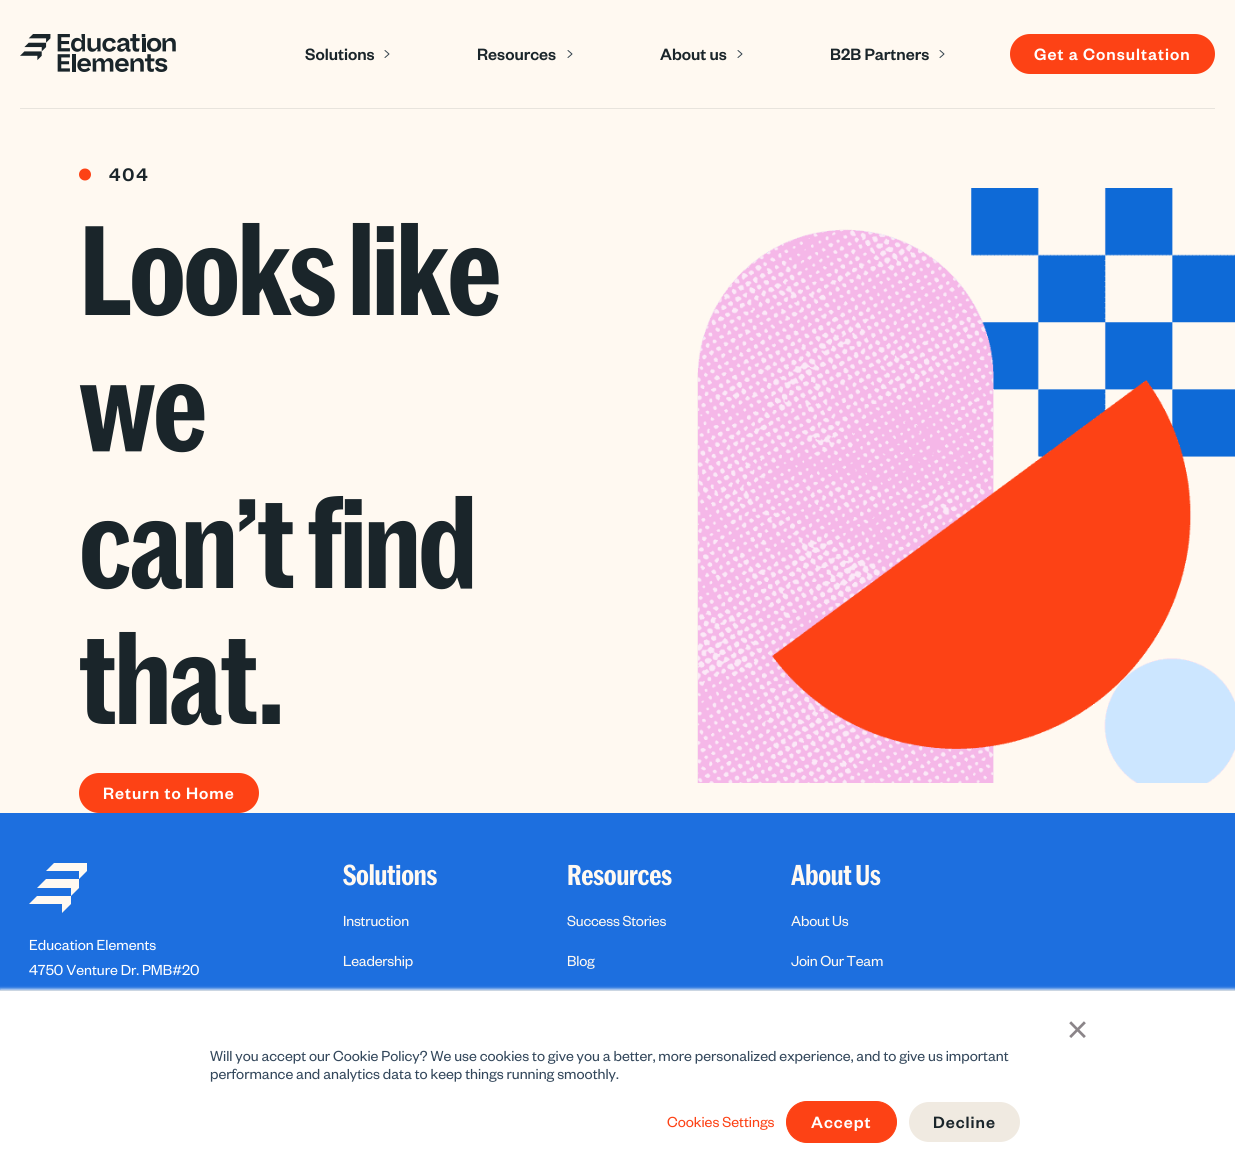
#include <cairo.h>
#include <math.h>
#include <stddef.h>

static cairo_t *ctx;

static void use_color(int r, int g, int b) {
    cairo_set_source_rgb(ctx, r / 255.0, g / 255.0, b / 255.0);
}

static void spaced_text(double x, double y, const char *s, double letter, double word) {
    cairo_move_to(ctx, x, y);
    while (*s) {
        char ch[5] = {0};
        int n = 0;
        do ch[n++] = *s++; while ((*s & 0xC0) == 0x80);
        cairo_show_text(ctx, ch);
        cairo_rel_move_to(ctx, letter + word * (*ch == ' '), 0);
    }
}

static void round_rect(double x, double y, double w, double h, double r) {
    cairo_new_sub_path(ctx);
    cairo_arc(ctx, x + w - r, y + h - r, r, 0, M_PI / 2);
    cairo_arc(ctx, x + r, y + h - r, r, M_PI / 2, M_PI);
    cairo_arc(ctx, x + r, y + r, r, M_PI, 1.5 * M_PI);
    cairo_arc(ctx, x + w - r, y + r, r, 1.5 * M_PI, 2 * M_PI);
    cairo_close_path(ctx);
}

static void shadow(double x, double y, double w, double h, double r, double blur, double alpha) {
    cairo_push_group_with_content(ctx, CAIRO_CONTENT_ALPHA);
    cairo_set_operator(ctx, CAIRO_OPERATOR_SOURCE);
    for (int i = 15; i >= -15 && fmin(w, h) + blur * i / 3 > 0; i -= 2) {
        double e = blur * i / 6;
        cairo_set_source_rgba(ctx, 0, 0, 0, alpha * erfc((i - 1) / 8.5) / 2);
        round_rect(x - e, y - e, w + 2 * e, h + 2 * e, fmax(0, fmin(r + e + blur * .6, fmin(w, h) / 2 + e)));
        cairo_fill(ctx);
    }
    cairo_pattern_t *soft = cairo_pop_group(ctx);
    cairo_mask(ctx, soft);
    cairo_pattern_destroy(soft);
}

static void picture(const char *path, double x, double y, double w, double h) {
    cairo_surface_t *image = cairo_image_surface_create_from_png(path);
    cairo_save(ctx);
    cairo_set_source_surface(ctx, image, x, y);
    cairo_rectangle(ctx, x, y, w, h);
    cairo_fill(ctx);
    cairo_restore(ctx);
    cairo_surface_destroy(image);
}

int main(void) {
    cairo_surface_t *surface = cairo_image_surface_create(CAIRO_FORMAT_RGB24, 1235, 1169);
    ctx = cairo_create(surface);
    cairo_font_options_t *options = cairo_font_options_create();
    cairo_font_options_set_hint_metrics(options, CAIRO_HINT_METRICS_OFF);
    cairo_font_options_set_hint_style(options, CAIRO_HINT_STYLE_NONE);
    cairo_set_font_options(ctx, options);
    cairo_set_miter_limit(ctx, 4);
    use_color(255, 249, 241);
    cairo_paint(ctx);
    picture("img1.png", 20, 34, 156, 38);
    cairo_select_font_face(ctx, "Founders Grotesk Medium", CAIRO_FONT_SLANT_NORMAL, CAIRO_FONT_WEIGHT_NORMAL);
    cairo_set_font_size(ctx, 18);
    use_color(26, 37, 42);
    cairo_move_to(ctx, 305, 60);
    cairo_show_text(ctx, "Solutions");
    cairo_new_path(ctx);
    cairo_move_to(ctx, 385, 50.5);
    cairo_line_to(ctx, 389, 54);
    cairo_line_to(ctx, 385, 57.5);
    use_color(54, 69, 79);
    cairo_set_line_width(ctx, 1);
    cairo_set_line_cap(ctx, CAIRO_LINE_CAP_ROUND);
    cairo_set_line_join(ctx, CAIRO_LINE_JOIN_ROUND);
    cairo_stroke(ctx);
    use_color(26, 37, 42);
    cairo_move_to(ctx, 477, 60);
    cairo_show_text(ctx, "Resources");
    cairo_new_path(ctx);
    cairo_move_to(ctx, 568, 50.5);
    cairo_line_to(ctx, 572, 54);
    cairo_line_to(ctx, 568, 57.5);
    use_color(54, 69, 79);
    cairo_stroke(ctx);
    use_color(26, 37, 42);
    cairo_move_to(ctx, 660, 60);
    cairo_show_text(ctx, "About us");
    cairo_new_path(ctx);
    cairo_move_to(ctx, 738, 50.5);
    cairo_line_to(ctx, 742, 54);
    cairo_line_to(ctx, 738, 57.5);
    use_color(54, 69, 79);
    cairo_stroke(ctx);
    use_color(26, 37, 42);
    cairo_move_to(ctx, 830, 60);
    cairo_show_text(ctx, "B2B Partners");
    cairo_new_path(ctx);
    cairo_move_to(ctx, 940, 50.5);
    cairo_line_to(ctx, 944, 54);
    cairo_line_to(ctx, 940, 57.5);
    use_color(54, 69, 79);
    cairo_stroke(ctx);
    use_color(253, 66, 21);
    round_rect(1010, 34, 205, 40, 20);
    cairo_fill(ctx);
    use_color(255, 255, 255);
    spaced_text(1034, 60, "Get a Consultation", 1, 0);
    use_color(232, 228, 221);
    cairo_rectangle(ctx, 20, 108, 1195, 1);
    cairo_fill(ctx);
    use_color(253, 66, 21);
    cairo_arc(ctx, 85, 174.5, 6, 0, 2 * M_PI);
    cairo_fill(ctx);
    cairo_set_font_size(ctx, 20);
    use_color(26, 37, 42);
    spaced_text(109, 181, "404", 2, 0);
    cairo_select_font_face(ctx, "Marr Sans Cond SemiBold", CAIRO_FONT_SLANT_NORMAL, CAIRO_FONT_WEIGHT_NORMAL);
    cairo_set_font_size(ctx, 124);
    spaced_text(79, 315, "Looks like", -2.5, 0);
    spaced_text(79, 451, "we", -2.5, 0);
    spaced_text(79, 588, "can’t find", -2.5, 0);
    spaced_text(79, 724, "that.", -2.5, 0);
    use_color(253, 66, 21);
    round_rect(79, 773, 180, 40, 20);
    cairo_fill(ctx);
    cairo_select_font_face(ctx, "Founders Grotesk Medium", CAIRO_FONT_SLANT_NORMAL, CAIRO_FONT_WEIGHT_NORMAL);
    cairo_set_font_size(ctx, 18);
    use_color(255, 255, 255);
    spaced_text(103, 799, "Return to Home", 1, 0);
    picture("img2.png", 697, 188, 538, 595);
    use_color(29, 111, 223);
    cairo_rectangle(ctx, 0, 813, 1235, 177);
    cairo_fill(ctx);
    use_color(255, 249, 241);
    cairo_new_path(ctx);
    cairo_move_to(ctx, 46, 871);
    cairo_line_to(ctx, 54, 863);
    cairo_line_to(ctx, 87, 863);
    cairo_line_to(ctx, 87, 871);
    cairo_line_to(ctx, 79, 879);
    cairo_line_to(ctx, 79, 871);
    cairo_close_path(ctx);
    cairo_move_to(ctx, 37, 888);
    cairo_line_to(ctx, 46, 879);
    cairo_line_to(ctx, 79, 879);
    cairo_line_to(ctx, 79, 888);
    cairo_line_to(ctx, 71, 896);
    cairo_line_to(ctx, 71, 888);
    cairo_close_path(ctx);
    cairo_move_to(ctx, 29, 904);
    cairo_line_to(ctx, 37, 896);
    cairo_line_to(ctx, 71, 896);
    cairo_line_to(ctx, 71, 904);
    cairo_line_to(ctx, 62, 913);
    cairo_line_to(ctx, 62, 904);
    cairo_close_path(ctx);
    cairo_fill(ctx);
    cairo_select_font_face(ctx, "Founders Grotesk", CAIRO_FONT_SLANT_NORMAL, CAIRO_FONT_WEIGHT_NORMAL);
    cairo_set_font_size(ctx, 16);
    use_color(255, 255, 255);
    cairo_move_to(ctx, 29, 950);
    cairo_show_text(ctx, "Education Elements");
    cairo_move_to(ctx, 29, 975);
    cairo_show_text(ctx, "4750 Venture Dr. PMB#20");
    cairo_select_font_face(ctx, "Marr Sans Cond SemiBold", CAIRO_FONT_SLANT_NORMAL, CAIRO_FONT_WEIGHT_NORMAL);
    cairo_set_font_size(ctx, 28);
    use_color(255, 249, 241);
    spaced_text(343, 885, "Solutions", -0.2, 0);
    cairo_select_font_face(ctx, "Founders Grotesk", CAIRO_FONT_SLANT_NORMAL, CAIRO_FONT_WEIGHT_NORMAL);
    cairo_set_font_size(ctx, 16);
    spaced_text(343, 926, "Instruction", -0.2, 0);
    spaced_text(343, 966, "Leadership", -0.2, 0);
    cairo_select_font_face(ctx, "Marr Sans Cond SemiBold", CAIRO_FONT_SLANT_NORMAL, CAIRO_FONT_WEIGHT_NORMAL);
    cairo_set_font_size(ctx, 28);
    spaced_text(567, 885, "Resources", -0.2, 0);
    cairo_select_font_face(ctx, "Founders Grotesk", CAIRO_FONT_SLANT_NORMAL, CAIRO_FONT_WEIGHT_NORMAL);
    cairo_set_font_size(ctx, 16);
    spaced_text(567, 926, "Success Stories", -0.2, 0);
    spaced_text(567, 966, "Blog", -0.2, 0);
    cairo_select_font_face(ctx, "Marr Sans Cond SemiBold", CAIRO_FONT_SLANT_NORMAL, CAIRO_FONT_WEIGHT_NORMAL);
    cairo_set_font_size(ctx, 28);
    spaced_text(791, 885, "About Us", -0.2, 0);
    cairo_select_font_face(ctx, "Founders Grotesk", CAIRO_FONT_SLANT_NORMAL, CAIRO_FONT_WEIGHT_NORMAL);
    cairo_set_font_size(ctx, 16);
    spaced_text(791, 926, "About Us", -0.2, 0);
    spaced_text(791, 966, "Join Our Team", -0.2, 0);
    use_color(234, 240, 246);
    shadow(0, 989, 1235, 179, 0, 1.5, 1);
    use_color(255, 255, 255);
    cairo_rectangle(ctx, 0, 991, 1235, 178);
    cairo_fill(ctx);
    use_color(203, 214, 226);
    cairo_rectangle(ctx, 0, 990, 1235, 1);
    cairo_fill(ctx);
    cairo_set_font_size(ctx, 40);
    use_color(139, 133, 137);
    cairo_move_to(ctx, 1067, 1042);
    cairo_show_text(ctx, "×");
    cairo_set_font_size(ctx, 16);
    use_color(51, 71, 91);
    cairo_move_to(ctx, 210, 1061);
    cairo_show_text(ctx, "Will you accept our Cookie Policy? We use cookies to give you a better, more personalized experience, and to give us important");
    cairo_move_to(ctx, 210, 1079);
    cairo_show_text(ctx, "performance and analytics data to keep things running smoothly.");
    use_color(253, 66, 21);
    cairo_move_to(ctx, 667, 1127);
    cairo_show_text(ctx, "Cookies Settings");
    round_rect(786.5, 1101.5, 110, 41, 20.5);
    cairo_fill_preserve(ctx);
    cairo_set_line_cap(ctx, CAIRO_LINE_CAP_BUTT);
    cairo_set_line_join(ctx, CAIRO_LINE_JOIN_MITER);
    cairo_stroke(ctx);
    cairo_select_font_face(ctx, "Founders Grotesk Medium", CAIRO_FONT_SLANT_NORMAL, CAIRO_FONT_WEIGHT_NORMAL);
    cairo_set_font_size(ctx, 18);
    use_color(255, 255, 255);
    spaced_text(811, 1128, "Accept", 1, 0);
    use_color(240, 234, 225);
    round_rect(909, 1102, 111, 40, 20);
    cairo_fill(ctx);
    use_color(26, 37, 42);
    spaced_text(933, 1128, "Decline", 1, 0);
    cairo_surface_write_to_png(surface, "result.png");
    cairo_font_options_destroy(options);
    cairo_destroy(ctx);
    cairo_surface_destroy(surface);
    return 0;
}
